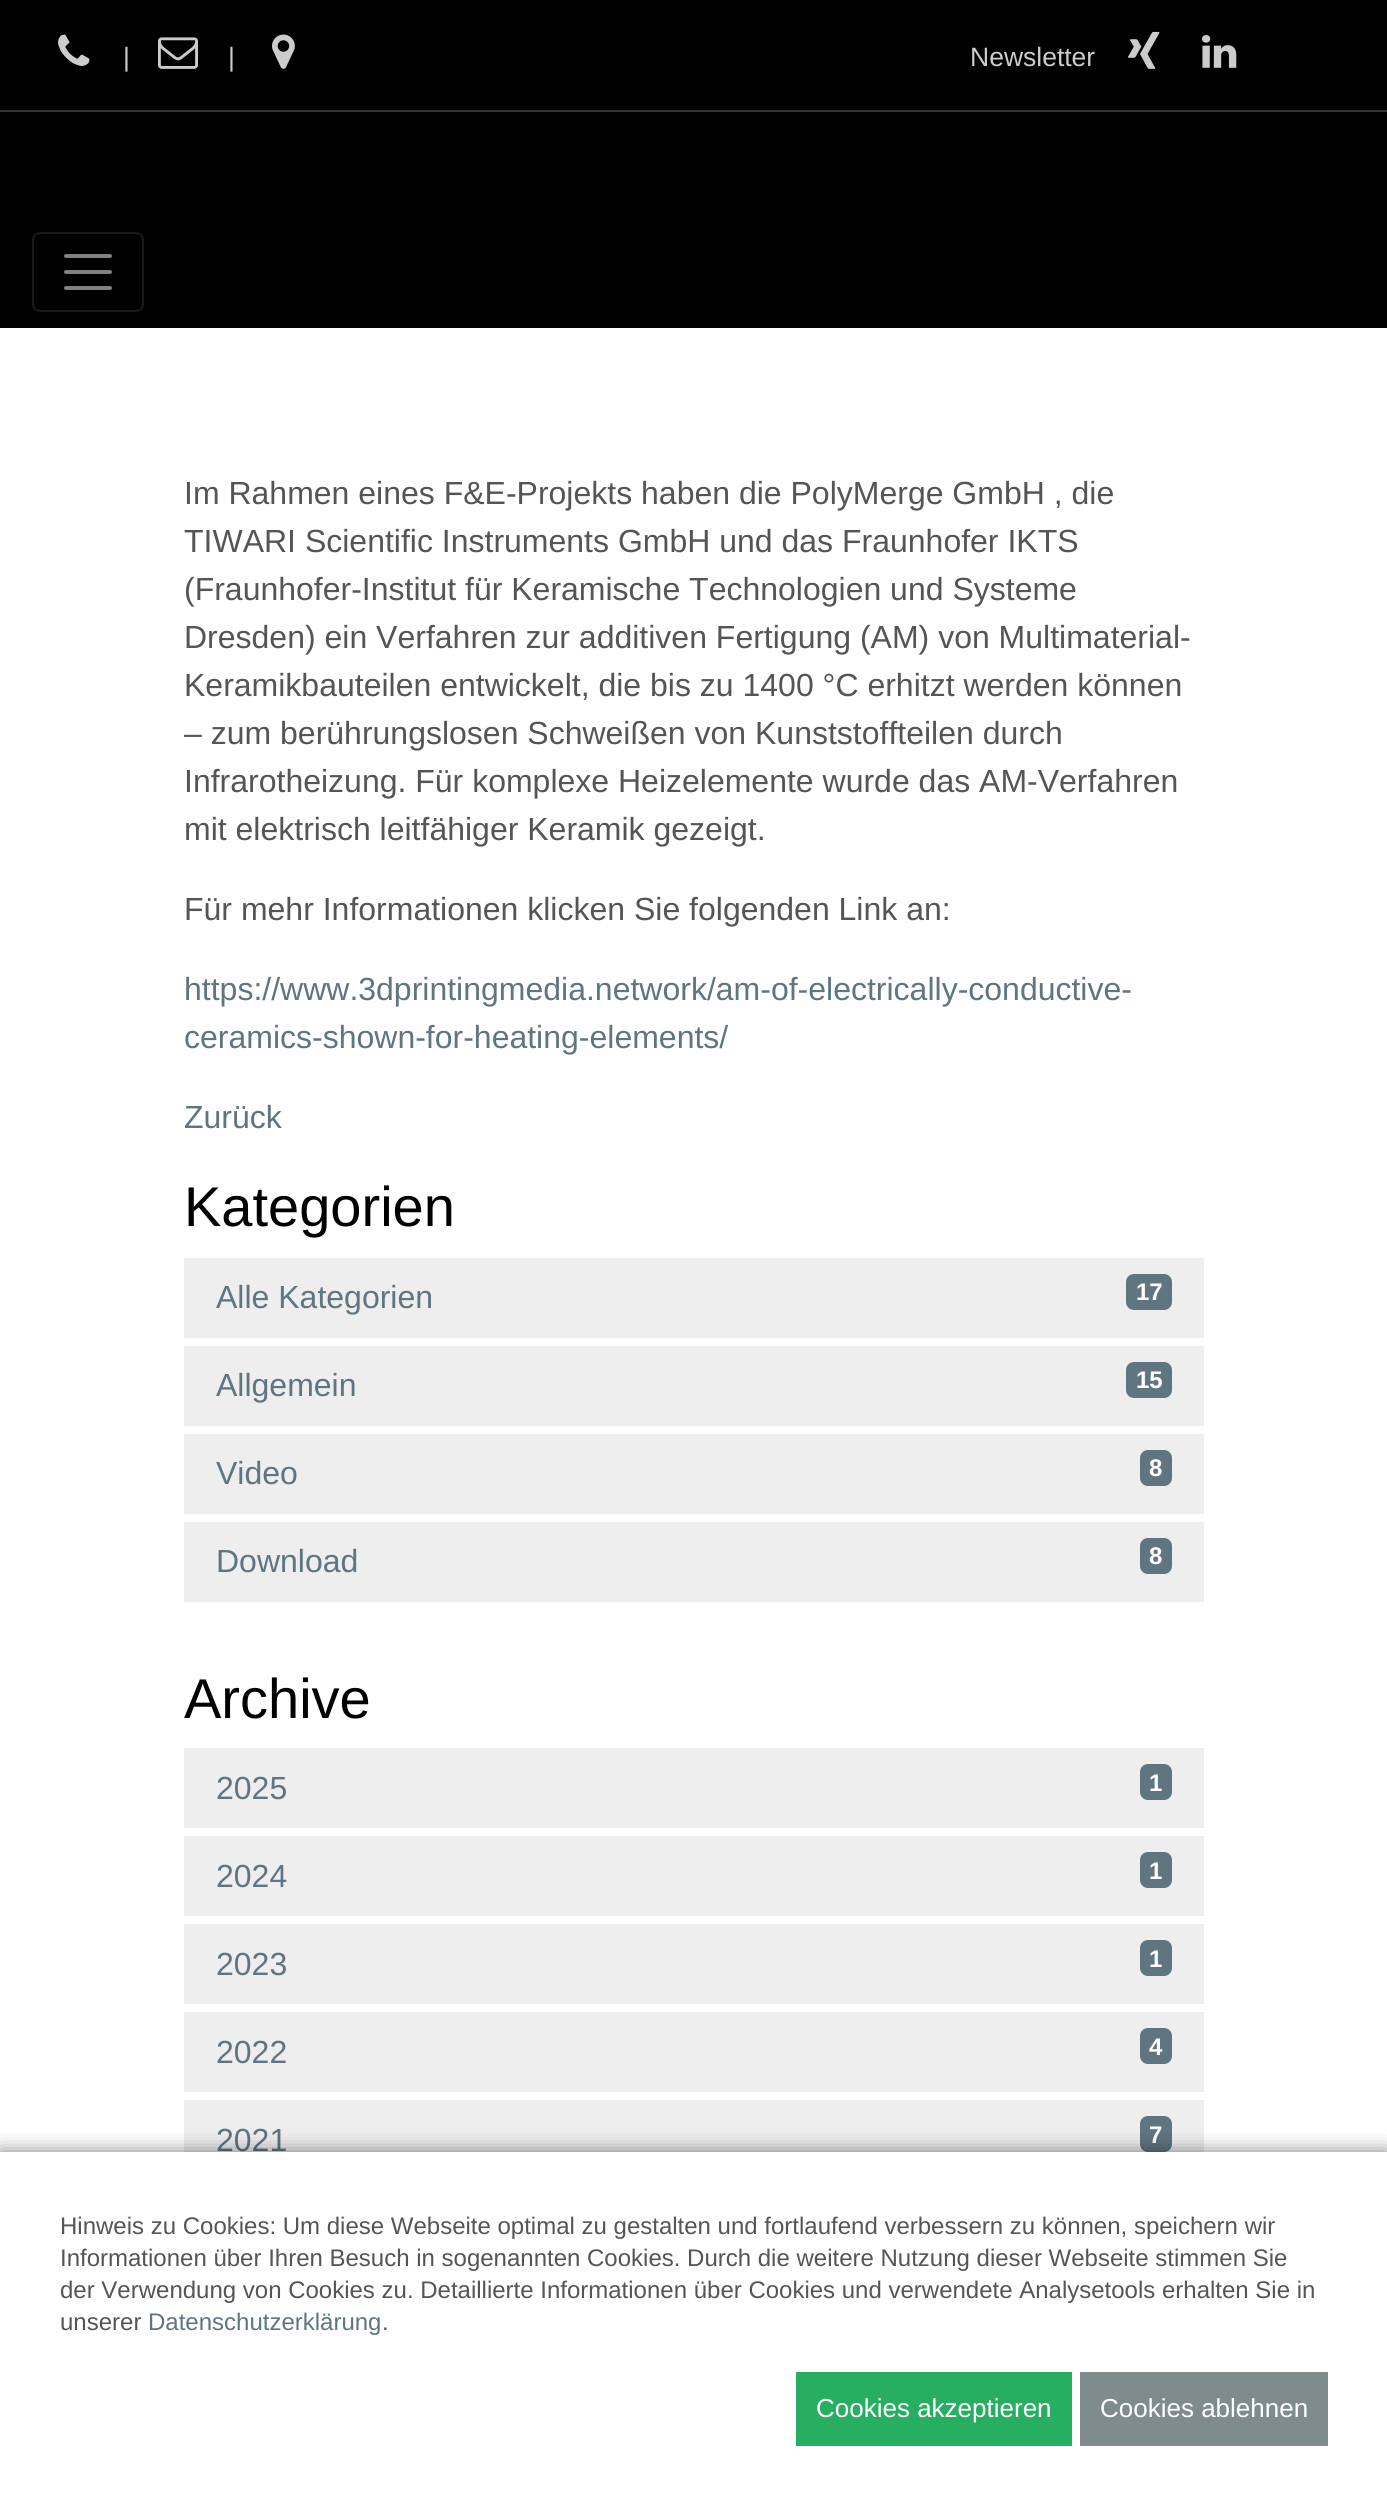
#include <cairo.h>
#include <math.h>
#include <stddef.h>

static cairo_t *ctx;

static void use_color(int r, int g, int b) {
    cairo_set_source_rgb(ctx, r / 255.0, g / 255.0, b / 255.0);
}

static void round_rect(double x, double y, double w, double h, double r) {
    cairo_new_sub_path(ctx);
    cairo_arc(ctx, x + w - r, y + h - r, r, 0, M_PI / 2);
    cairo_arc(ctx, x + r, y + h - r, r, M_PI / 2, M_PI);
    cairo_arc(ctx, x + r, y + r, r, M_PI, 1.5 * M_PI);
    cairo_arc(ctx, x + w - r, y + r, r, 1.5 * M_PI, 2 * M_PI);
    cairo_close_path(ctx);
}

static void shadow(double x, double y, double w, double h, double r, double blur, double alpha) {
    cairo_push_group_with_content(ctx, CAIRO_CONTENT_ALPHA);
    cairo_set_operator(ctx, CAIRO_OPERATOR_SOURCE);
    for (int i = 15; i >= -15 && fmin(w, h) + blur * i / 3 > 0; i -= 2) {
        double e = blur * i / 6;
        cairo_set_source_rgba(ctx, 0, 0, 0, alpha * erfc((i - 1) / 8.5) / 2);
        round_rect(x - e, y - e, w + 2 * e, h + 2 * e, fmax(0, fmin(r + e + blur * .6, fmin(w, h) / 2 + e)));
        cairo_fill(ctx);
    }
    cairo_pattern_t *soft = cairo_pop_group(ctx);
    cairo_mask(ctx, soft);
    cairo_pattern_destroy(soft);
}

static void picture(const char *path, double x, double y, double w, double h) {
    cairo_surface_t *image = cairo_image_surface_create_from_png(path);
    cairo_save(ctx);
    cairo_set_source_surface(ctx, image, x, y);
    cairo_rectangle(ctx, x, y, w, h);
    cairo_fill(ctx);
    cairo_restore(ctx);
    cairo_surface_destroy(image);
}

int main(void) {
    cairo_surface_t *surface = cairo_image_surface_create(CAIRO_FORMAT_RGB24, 1387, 2505);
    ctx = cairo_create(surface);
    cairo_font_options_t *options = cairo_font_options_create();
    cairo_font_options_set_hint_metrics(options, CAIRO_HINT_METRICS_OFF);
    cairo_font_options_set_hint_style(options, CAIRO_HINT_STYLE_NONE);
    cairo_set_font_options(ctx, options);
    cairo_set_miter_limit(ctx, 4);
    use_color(255, 255, 255);
    cairo_paint(ctx);
    use_color(0, 0, 0);
    cairo_rectangle(ctx, 0, 0, 1387, 328);
    cairo_fill(ctx);
    picture("img1.png", 58, 34, 32, 32);
    cairo_select_font_face(ctx, "Liberation Sans", CAIRO_FONT_SLANT_NORMAL, CAIRO_FONT_WEIGHT_NORMAL);
    cairo_set_font_size(ctx, 26.5);
    use_color(204, 204, 204);
    cairo_move_to(ctx, 123, 66);
    cairo_show_text(ctx, "|");
    picture("img2.png", 158, 37, 40, 32);
    cairo_move_to(ctx, 228, 66);
    cairo_show_text(ctx, "|");
    picture("img3.png", 272, 34, 23, 35);
    cairo_move_to(ctx, 970, 66);
    cairo_show_text(ctx, "Newsletter");
    picture("img4.png", 1128, 31, 32, 38);
    picture("img5.png", 1202, 35, 35, 33);
    use_color(51, 51, 51);
    cairo_rectangle(ctx, 0, 110, 1387, 2);
    cairo_fill(ctx);
    round_rect(33, 233, 110, 78, 7);
    use_color(26, 26, 26);
    cairo_stroke(ctx);
    cairo_new_path(ctx);
    cairo_move_to(ctx, 66, 256);
    cairo_line_to(ctx, 110, 256);
    cairo_move_to(ctx, 66, 272);
    cairo_line_to(ctx, 110, 272);
    cairo_move_to(ctx, 66, 288);
    cairo_line_to(ctx, 110, 288);
    use_color(128, 128, 128);
    cairo_set_line_width(ctx, 4);
    cairo_set_line_cap(ctx, CAIRO_LINE_CAP_ROUND);
    cairo_stroke(ctx);
    cairo_set_font_size(ctx, 32);
    use_color(85, 85, 85);
    cairo_move_to(ctx, 184, 504);
    cairo_show_text(ctx, "Im Rahmen eines F&E-Projekts haben die PolyMerge GmbH , die");
    cairo_move_to(ctx, 184, 552);
    cairo_show_text(ctx, "TIWARI Scientific Instruments GmbH und das Fraunhofer IKTS");
    cairo_move_to(ctx, 184, 600);
    cairo_show_text(ctx, "(Fraunhofer-Institut für Keramische Technologien und Systeme");
    cairo_move_to(ctx, 184, 648);
    cairo_show_text(ctx, "Dresden) ein Verfahren zur additiven Fertigung (AM) von Multimaterial-");
    cairo_move_to(ctx, 184, 696);
    cairo_show_text(ctx, "Keramikbauteilen entwickelt, die bis zu 1400 °C erhitzt werden können");
    cairo_move_to(ctx, 184, 744);
    cairo_show_text(ctx, "– zum berührungslosen Schweißen von Kunststoffteilen durch");
    cairo_move_to(ctx, 184, 792);
    cairo_show_text(ctx, "Infrarotheizung. Für komplexe Heizelemente wurde das AM-Verfahren");
    cairo_move_to(ctx, 184, 840);
    cairo_show_text(ctx, "mit elektrisch leitfähiger Keramik gezeigt.");
    cairo_move_to(ctx, 184, 920);
    cairo_show_text(ctx, "Für mehr Informationen klicken Sie folgenden Link an:");
    use_color(95, 117, 128);
    cairo_move_to(ctx, 184, 1000);
    cairo_show_text(ctx, "https://www.3dprintingmedia.network/am-of-electrically-conductive-");
    cairo_move_to(ctx, 184, 1048);
    cairo_show_text(ctx, "ceramics-shown-for-heating-elements/");
    cairo_move_to(ctx, 184, 1128);
    cairo_show_text(ctx, "Zurück");
    cairo_set_font_size(ctx, 56);
    use_color(0, 0, 0);
    cairo_move_to(ctx, 184, 1226);
    cairo_show_text(ctx, "Kategorien");
    use_color(238, 238, 238);
    cairo_rectangle(ctx, 184, 1258, 1020, 80);
    cairo_fill(ctx);
    cairo_set_font_size(ctx, 32);
    use_color(95, 117, 128);
    cairo_move_to(ctx, 216, 1308);
    cairo_show_text(ctx, "Alle Kategorien");
    round_rect(1126, 1274, 46, 36, 8);
    cairo_fill(ctx);
    cairo_select_font_face(ctx, "Liberation Sans", CAIRO_FONT_SLANT_NORMAL, CAIRO_FONT_WEIGHT_BOLD);
    cairo_set_font_size(ctx, 24);
    use_color(255, 255, 255);
    cairo_move_to(ctx, 1136, 1300);
    cairo_show_text(ctx, "17");
    use_color(238, 238, 238);
    cairo_rectangle(ctx, 184, 1346, 1020, 80);
    cairo_fill(ctx);
    cairo_select_font_face(ctx, "Liberation Sans", CAIRO_FONT_SLANT_NORMAL, CAIRO_FONT_WEIGHT_NORMAL);
    cairo_set_font_size(ctx, 32);
    use_color(95, 117, 128);
    cairo_move_to(ctx, 216, 1396);
    cairo_show_text(ctx, "Allgemein");
    round_rect(1126, 1362, 46, 36, 8);
    cairo_fill(ctx);
    cairo_select_font_face(ctx, "Liberation Sans", CAIRO_FONT_SLANT_NORMAL, CAIRO_FONT_WEIGHT_BOLD);
    cairo_set_font_size(ctx, 24);
    use_color(255, 255, 255);
    cairo_move_to(ctx, 1136, 1388);
    cairo_show_text(ctx, "15");
    use_color(238, 238, 238);
    cairo_rectangle(ctx, 184, 1434, 1020, 80);
    cairo_fill(ctx);
    cairo_select_font_face(ctx, "Liberation Sans", CAIRO_FONT_SLANT_NORMAL, CAIRO_FONT_WEIGHT_NORMAL);
    cairo_set_font_size(ctx, 32);
    use_color(95, 117, 128);
    cairo_move_to(ctx, 216, 1484);
    cairo_show_text(ctx, "Video");
    round_rect(1140, 1450, 32, 36, 8);
    cairo_fill(ctx);
    cairo_select_font_face(ctx, "Liberation Sans", CAIRO_FONT_SLANT_NORMAL, CAIRO_FONT_WEIGHT_BOLD);
    cairo_set_font_size(ctx, 24);
    use_color(255, 255, 255);
    cairo_move_to(ctx, 1149, 1476);
    cairo_show_text(ctx, "8");
    use_color(238, 238, 238);
    cairo_rectangle(ctx, 184, 1522, 1020, 80);
    cairo_fill(ctx);
    cairo_select_font_face(ctx, "Liberation Sans", CAIRO_FONT_SLANT_NORMAL, CAIRO_FONT_WEIGHT_NORMAL);
    cairo_set_font_size(ctx, 32);
    use_color(95, 117, 128);
    cairo_move_to(ctx, 216, 1572);
    cairo_show_text(ctx, "Download");
    round_rect(1140, 1538, 32, 36, 8);
    cairo_fill(ctx);
    cairo_select_font_face(ctx, "Liberation Sans", CAIRO_FONT_SLANT_NORMAL, CAIRO_FONT_WEIGHT_BOLD);
    cairo_set_font_size(ctx, 24);
    use_color(255, 255, 255);
    cairo_move_to(ctx, 1149, 1564);
    cairo_show_text(ctx, "8");
    cairo_select_font_face(ctx, "Liberation Sans", CAIRO_FONT_SLANT_NORMAL, CAIRO_FONT_WEIGHT_NORMAL);
    cairo_set_font_size(ctx, 56);
    use_color(0, 0, 0);
    cairo_move_to(ctx, 184, 1718);
    cairo_show_text(ctx, "Archive");
    use_color(238, 238, 238);
    cairo_rectangle(ctx, 184, 1748, 1020, 80);
    cairo_fill(ctx);
    cairo_set_font_size(ctx, 32);
    use_color(95, 117, 128);
    cairo_move_to(ctx, 216, 1799);
    cairo_show_text(ctx, "2025");
    round_rect(1140, 1764, 32, 36, 8);
    cairo_fill(ctx);
    cairo_select_font_face(ctx, "Liberation Sans", CAIRO_FONT_SLANT_NORMAL, CAIRO_FONT_WEIGHT_BOLD);
    cairo_set_font_size(ctx, 24);
    use_color(255, 255, 255);
    cairo_move_to(ctx, 1149, 1791);
    cairo_show_text(ctx, "1");
    use_color(238, 238, 238);
    cairo_rectangle(ctx, 184, 1836, 1020, 80);
    cairo_fill(ctx);
    cairo_select_font_face(ctx, "Liberation Sans", CAIRO_FONT_SLANT_NORMAL, CAIRO_FONT_WEIGHT_NORMAL);
    cairo_set_font_size(ctx, 32);
    use_color(95, 117, 128);
    cairo_move_to(ctx, 216, 1887);
    cairo_show_text(ctx, "2024");
    round_rect(1140, 1852, 32, 36, 8);
    cairo_fill(ctx);
    cairo_select_font_face(ctx, "Liberation Sans", CAIRO_FONT_SLANT_NORMAL, CAIRO_FONT_WEIGHT_BOLD);
    cairo_set_font_size(ctx, 24);
    use_color(255, 255, 255);
    cairo_move_to(ctx, 1149, 1879);
    cairo_show_text(ctx, "1");
    use_color(238, 238, 238);
    cairo_rectangle(ctx, 184, 1924, 1020, 80);
    cairo_fill(ctx);
    cairo_select_font_face(ctx, "Liberation Sans", CAIRO_FONT_SLANT_NORMAL, CAIRO_FONT_WEIGHT_NORMAL);
    cairo_set_font_size(ctx, 32);
    use_color(95, 117, 128);
    cairo_move_to(ctx, 216, 1975);
    cairo_show_text(ctx, "2023");
    round_rect(1140, 1940, 32, 36, 8);
    cairo_fill(ctx);
    cairo_select_font_face(ctx, "Liberation Sans", CAIRO_FONT_SLANT_NORMAL, CAIRO_FONT_WEIGHT_BOLD);
    cairo_set_font_size(ctx, 24);
    use_color(255, 255, 255);
    cairo_move_to(ctx, 1149, 1967);
    cairo_show_text(ctx, "1");
    use_color(238, 238, 238);
    cairo_rectangle(ctx, 184, 2012, 1020, 80);
    cairo_fill(ctx);
    cairo_select_font_face(ctx, "Liberation Sans", CAIRO_FONT_SLANT_NORMAL, CAIRO_FONT_WEIGHT_NORMAL);
    cairo_set_font_size(ctx, 32);
    use_color(95, 117, 128);
    cairo_move_to(ctx, 216, 2063);
    cairo_show_text(ctx, "2022");
    round_rect(1140, 2028, 32, 36, 8);
    cairo_fill(ctx);
    cairo_select_font_face(ctx, "Liberation Sans", CAIRO_FONT_SLANT_NORMAL, CAIRO_FONT_WEIGHT_BOLD);
    cairo_set_font_size(ctx, 24);
    use_color(255, 255, 255);
    cairo_move_to(ctx, 1149, 2055);
    cairo_show_text(ctx, "4");
    use_color(238, 238, 238);
    cairo_rectangle(ctx, 184, 2100, 1020, 52);
    cairo_fill(ctx);
    cairo_select_font_face(ctx, "Liberation Sans", CAIRO_FONT_SLANT_NORMAL, CAIRO_FONT_WEIGHT_NORMAL);
    cairo_set_font_size(ctx, 32);
    use_color(95, 117, 128);
    cairo_move_to(ctx, 216, 2151);
    cairo_show_text(ctx, "2021");
    round_rect(1140, 2116, 32, 36, 8);
    cairo_fill(ctx);
    cairo_select_font_face(ctx, "Liberation Sans", CAIRO_FONT_SLANT_NORMAL, CAIRO_FONT_WEIGHT_BOLD);
    cairo_set_font_size(ctx, 24);
    use_color(255, 255, 255);
    cairo_move_to(ctx, 1149, 2143);
    cairo_show_text(ctx, "7");
    use_color(0, 0, 0);
    shadow(0, 2152, 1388, 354, 0, 10, 0.5);
    use_color(255, 255, 255);
    cairo_rectangle(ctx, 0, 2152, 1387, 353);
    cairo_fill(ctx);
    cairo_select_font_face(ctx, "Liberation Sans", CAIRO_FONT_SLANT_NORMAL, CAIRO_FONT_WEIGHT_NORMAL);
    use_color(85, 85, 85);
    cairo_move_to(ctx, 60, 2234);
    cairo_show_text(ctx, "Hinweis zu Cookies: Um diese Webseite optimal zu gestalten und fortlaufend verbessern zu können, speichern wir");
    cairo_move_to(ctx, 60, 2266);
    cairo_show_text(ctx, "Informationen über Ihren Besuch in sogenannten Cookies. Durch die weitere Nutzung dieser Webseite stimmen Sie");
    cairo_move_to(ctx, 60, 2298);
    cairo_show_text(ctx, "der Verwendung von Cookies zu. Detaillierte Informationen über Cookies und verwendete Analysetools erhalten Sie in");
    cairo_move_to(ctx, 60, 2330);
    cairo_show_text(ctx, "unserer");
    use_color(95, 117, 128);
    cairo_move_to(ctx, 148, 2330);
    cairo_show_text(ctx, "Datenschutzerklärung");
    use_color(85, 85, 85);
    cairo_move_to(ctx, 382, 2330);
    cairo_show_text(ctx, ".");
    use_color(39, 174, 96);
    cairo_rectangle(ctx, 796, 2372, 276, 74);
    cairo_fill(ctx);
    cairo_set_font_size(ctx, 26);
    use_color(255, 255, 255);
    cairo_move_to(ctx, 816, 2417);
    cairo_show_text(ctx, "Cookies akzeptieren");
    use_color(127, 140, 141);
    cairo_rectangle(ctx, 1080, 2372, 248, 74);
    cairo_fill(ctx);
    use_color(255, 255, 255);
    cairo_move_to(ctx, 1100, 2417);
    cairo_show_text(ctx, "Cookies ablehnen");
    cairo_surface_write_to_png(surface, "result.png");
    cairo_font_options_destroy(options);
    cairo_destroy(ctx);
    cairo_surface_destroy(surface);
    return 0;
}
